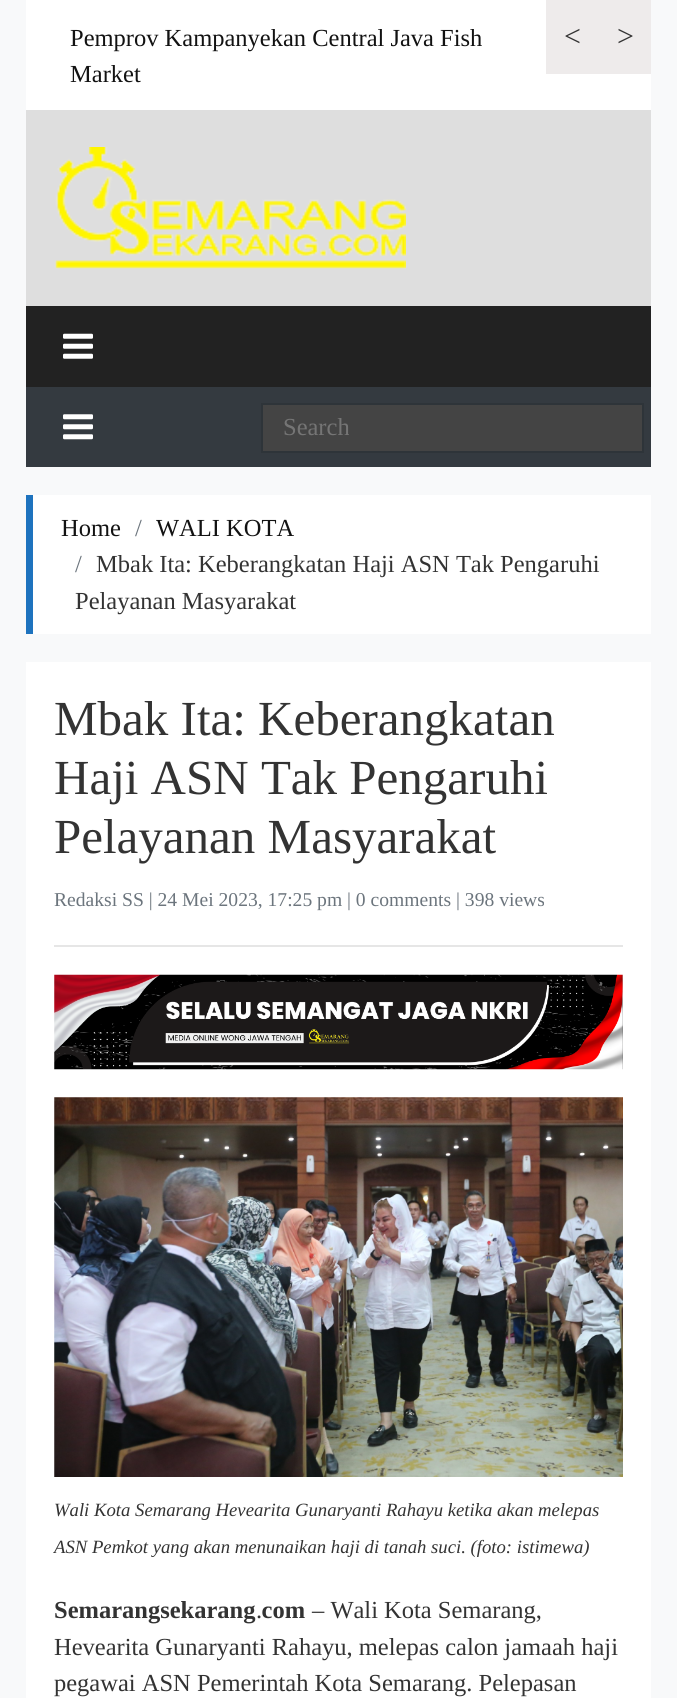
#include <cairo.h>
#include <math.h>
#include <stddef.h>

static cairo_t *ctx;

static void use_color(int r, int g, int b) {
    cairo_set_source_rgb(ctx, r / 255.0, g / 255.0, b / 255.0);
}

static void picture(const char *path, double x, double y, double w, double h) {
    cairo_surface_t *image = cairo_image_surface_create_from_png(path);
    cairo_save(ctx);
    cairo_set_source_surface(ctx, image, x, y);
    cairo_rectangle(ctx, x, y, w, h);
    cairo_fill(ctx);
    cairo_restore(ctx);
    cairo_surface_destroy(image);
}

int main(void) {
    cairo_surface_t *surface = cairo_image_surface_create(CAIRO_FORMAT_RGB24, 677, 1698);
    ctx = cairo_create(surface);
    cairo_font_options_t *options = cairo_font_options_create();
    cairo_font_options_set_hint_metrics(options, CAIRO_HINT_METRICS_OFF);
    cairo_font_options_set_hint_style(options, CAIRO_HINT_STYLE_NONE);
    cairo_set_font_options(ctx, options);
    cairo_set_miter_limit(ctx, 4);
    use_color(248, 249, 250);
    cairo_paint(ctx);
    use_color(255, 255, 255);
    cairo_rectangle(ctx, 26, 0, 625, 110);
    cairo_fill(ctx);
    cairo_select_font_face(ctx, "Liberation Serif", CAIRO_FONT_SLANT_NORMAL, CAIRO_FONT_WEIGHT_NORMAL);
    cairo_set_font_size(ctx, 24.5);
    use_color(18, 18, 18);
    cairo_move_to(ctx, 70, 46);
    cairo_show_text(ctx, "Pemprov Kampanyekan Central Java Fish");
    cairo_move_to(ctx, 70, 82);
    cairo_show_text(ctx, "Market");
    use_color(238, 235, 235);
    cairo_rectangle(ctx, 546, 0, 105, 74);
    cairo_fill(ctx);
    cairo_set_font_size(ctx, 30);
    use_color(51, 51, 51);
    cairo_move_to(ctx, 564, 46);
    cairo_show_text(ctx, "<");
    cairo_move_to(ctx, 617, 46);
    cairo_show_text(ctx, ">");
    use_color(222, 222, 222);
    cairo_rectangle(ctx, 26, 110, 625, 196);
    cairo_fill(ctx);
    picture("img1.png", 55, 147, 351, 122);
    use_color(34, 34, 34);
    cairo_rectangle(ctx, 26, 306, 625, 81);
    cairo_fill(ctx);
    picture("img2.png", 63, 333, 30, 26);
    use_color(52, 58, 64);
    cairo_rectangle(ctx, 26, 387, 625, 80);
    cairo_fill(ctx);
    picture("img3.png", 63, 414, 30, 26);
    use_color(68, 68, 68);
    cairo_rectangle(ctx, 262, 404, 381, 48);
    cairo_fill_preserve(ctx);
    use_color(46, 52, 57);
    cairo_stroke(ctx);
    cairo_set_font_size(ctx, 24.5);
    use_color(117, 117, 117);
    cairo_move_to(ctx, 283, 435);
    cairo_show_text(ctx, "Search");
    use_color(255, 255, 255);
    cairo_rectangle(ctx, 33, 495, 618, 139);
    cairo_fill(ctx);
    use_color(30, 115, 190);
    cairo_rectangle(ctx, 26, 495, 7, 139);
    cairo_fill(ctx);
    use_color(18, 18, 18);
    cairo_move_to(ctx, 61, 536);
    cairo_show_text(ctx, "Home");
    use_color(108, 117, 125);
    cairo_move_to(ctx, 135, 536);
    cairo_show_text(ctx, "/");
    use_color(18, 18, 18);
    cairo_move_to(ctx, 156, 536);
    cairo_show_text(ctx, "WALI KOTA");
    use_color(108, 117, 125);
    cairo_move_to(ctx, 75, 572);
    cairo_show_text(ctx, "/");
    use_color(51, 51, 51);
    cairo_move_to(ctx, 96, 572);
    cairo_show_text(ctx, "Mbak Ita: Keberangkatan Haji ASN Tak Pengaruhi");
    cairo_move_to(ctx, 75, 609);
    cairo_show_text(ctx, "Pelayanan Masyarakat");
    use_color(255, 255, 255);
    cairo_rectangle(ctx, 26, 662, 625, 1036);
    cairo_fill(ctx);
    cairo_set_font_size(ctx, 49);
    use_color(51, 51, 51);
    cairo_move_to(ctx, 54, 735);
    cairo_show_text(ctx, "Mbak Ita: Keberangkatan");
    cairo_move_to(ctx, 54, 794);
    cairo_show_text(ctx, "Haji ASN Tak Pengaruhi");
    cairo_move_to(ctx, 54, 853);
    cairo_show_text(ctx, "Pelayanan Masyarakat");
    cairo_set_font_size(ctx, 19.6);
    use_color(108, 117, 125);
    cairo_move_to(ctx, 54, 906);
    cairo_show_text(ctx, "Redaksi SS | 24 Mei 2023, 17:25 pm | 0 comments | 398 views");
    use_color(230, 230, 230);
    cairo_rectangle(ctx, 54, 945, 569, 2);
    cairo_fill(ctx);
    picture("img4.png", 54, 974, 569, 96);
    picture("img5.png", 54, 1097, 569, 380);
    cairo_select_font_face(ctx, "Liberation Serif", CAIRO_FONT_SLANT_ITALIC, CAIRO_FONT_WEIGHT_NORMAL);
    cairo_set_font_size(ctx, 18.7);
    use_color(51, 51, 51);
    cairo_move_to(ctx, 54, 1516);
    cairo_show_text(ctx, "Wali Kota Semarang Hevearita Gunaryanti Rahayu ketika akan melepas");
    cairo_move_to(ctx, 54, 1553);
    cairo_show_text(ctx, "ASN Pemkot yang akan menunaikan haji di tanah suci. (foto: istimewa)");
    cairo_select_font_face(ctx, "Liberation Serif", CAIRO_FONT_SLANT_NORMAL, CAIRO_FONT_WEIGHT_BOLD);
    cairo_set_font_size(ctx, 24.5);
    cairo_move_to(ctx, 54, 1618);
    cairo_show_text(ctx, "Semarangsekarang com");
    cairo_select_font_face(ctx, "Liberation Serif", CAIRO_FONT_SLANT_NORMAL, CAIRO_FONT_WEIGHT_NORMAL);
    cairo_move_to(ctx, 312, 1618);
    cairo_show_text(ctx, "– Wali Kota Semarang,");
    cairo_move_to(ctx, 256, 1618);
    cairo_show_text(ctx, ".");
    cairo_move_to(ctx, 54, 1655);
    cairo_show_text(ctx, "Hevearita Gunaryanti Rahayu, melepas calon jamaah haji");
    cairo_move_to(ctx, 54, 1691);
    cairo_show_text(ctx, "pegawai ASN Pemerintah Kota Semarang. Pelepasan");
    cairo_surface_write_to_png(surface, "result.png");
    cairo_font_options_destroy(options);
    cairo_destroy(ctx);
    cairo_surface_destroy(surface);
    return 0;
}
